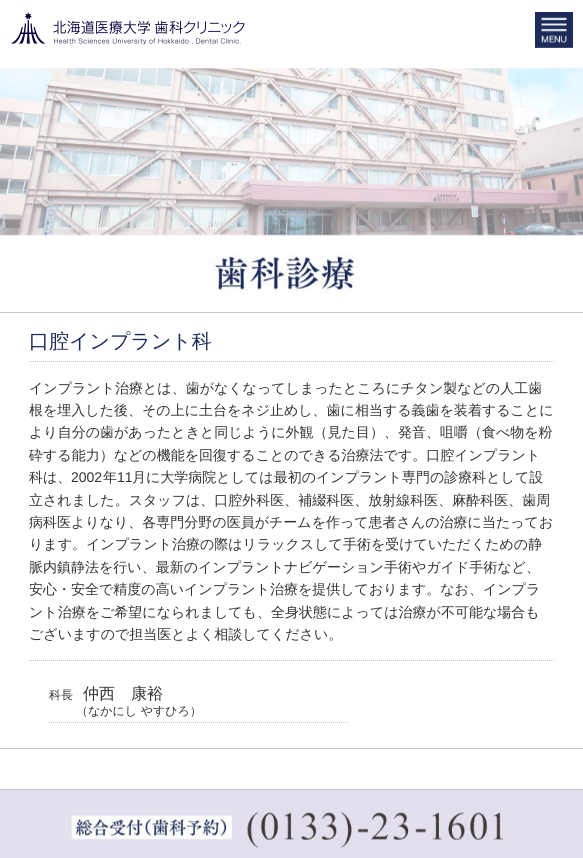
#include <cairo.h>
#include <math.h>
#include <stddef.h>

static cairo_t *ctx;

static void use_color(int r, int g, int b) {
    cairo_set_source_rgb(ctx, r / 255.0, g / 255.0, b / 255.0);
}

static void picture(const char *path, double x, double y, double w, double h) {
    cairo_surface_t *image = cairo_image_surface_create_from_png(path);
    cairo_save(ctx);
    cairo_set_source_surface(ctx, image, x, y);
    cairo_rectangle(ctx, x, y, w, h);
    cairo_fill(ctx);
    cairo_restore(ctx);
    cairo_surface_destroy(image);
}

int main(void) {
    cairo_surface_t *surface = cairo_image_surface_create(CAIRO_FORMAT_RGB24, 583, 858);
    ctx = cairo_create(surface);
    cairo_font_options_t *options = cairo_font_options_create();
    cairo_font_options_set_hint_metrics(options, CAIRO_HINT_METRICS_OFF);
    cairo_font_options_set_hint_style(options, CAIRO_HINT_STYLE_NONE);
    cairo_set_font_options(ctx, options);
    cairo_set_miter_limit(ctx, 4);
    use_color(255, 255, 255);
    cairo_paint(ctx);
    picture("img1.png", 11, 12, 234, 33);
    picture("img2.png", 535, 12, 38, 36);
    use_color(200, 201, 201);
    cairo_rectangle(ctx, 0, 312, 583, 1);
    cairo_fill(ctx);
    picture("img3.png", 0, 68, 583, 224);
    use_color(194, 195, 196);
    cairo_rectangle(ctx, 0, 748, 583, 1);
    cairo_fill(ctx);
    cairo_new_path(ctx);
    cairo_move_to(ctx, 29, 361.5);
    cairo_line_to(ctx, 554, 361.5);
    use_color(200, 201, 202);
    cairo_set_line_width(ctx, 1);
    cairo_set_dash(ctx, (double[]){1, 1}, 2, 0);
    cairo_stroke(ctx);
    cairo_select_font_face(ctx, "WenQuanYi Zen Hei Medium", CAIRO_FONT_SLANT_NORMAL, CAIRO_FONT_WEIGHT_NORMAL);
    cairo_set_font_size(ctx, 20);
    use_color(28, 43, 89);
    cairo_move_to(ctx, 29, 348);
    cairo_show_text(ctx, "口腔インプラント科");
    cairo_new_path(ctx);
    cairo_move_to(ctx, 29, 660.5);
    cairo_line_to(ctx, 554, 660.5);
    use_color(194, 195, 196);
    cairo_stroke(ctx);
    cairo_set_font_size(ctx, 14);
    use_color(51, 51, 51);
    cairo_move_to(ctx, 29, 393);
    cairo_show_text(ctx, "インプラント治療とは、歯がなくなってしまったところにチタン製などの人工歯");
    cairo_move_to(ctx, 29, 415);
    cairo_show_text(ctx, "根を埋入した後、その上に土台をネジ止めし、歯に相当する義歯を装着することに");
    cairo_move_to(ctx, 29, 437);
    cairo_show_text(ctx, "より自分の歯があったときと同じように外観（見た目）、発音、咀嚼（食べ物を粉");
    cairo_move_to(ctx, 29, 460);
    cairo_show_text(ctx, "砕する能力）などの機能を回復することのできる治療法です。口腔インプラント");
    cairo_move_to(ctx, 29, 482);
    cairo_show_text(ctx, "科は、");
    cairo_select_font_face(ctx, "Liberation Sans", CAIRO_FONT_SLANT_NORMAL, CAIRO_FONT_WEIGHT_NORMAL);
    cairo_move_to(ctx, 71, 482);
    cairo_show_text(ctx, "2002");
    cairo_select_font_face(ctx, "WenQuanYi Zen Hei Medium", CAIRO_FONT_SLANT_NORMAL, CAIRO_FONT_WEIGHT_NORMAL);
    cairo_move_to(ctx, 103, 482);
    cairo_show_text(ctx, "年");
    cairo_select_font_face(ctx, "Liberation Sans", CAIRO_FONT_SLANT_NORMAL, CAIRO_FONT_WEIGHT_NORMAL);
    cairo_move_to(ctx, 117, 482);
    cairo_show_text(ctx, "11");
    cairo_select_font_face(ctx, "WenQuanYi Zen Hei Medium", CAIRO_FONT_SLANT_NORMAL, CAIRO_FONT_WEIGHT_NORMAL);
    cairo_move_to(ctx, 132, 482);
    cairo_show_text(ctx, "月に大学病院としては最初のインプラント専門の診療科として設");
    cairo_move_to(ctx, 29, 505);
    cairo_show_text(ctx, "立されました。スタッフは、口腔外科医、補綴科医、放射線科医、麻酔科医、歯周");
    cairo_move_to(ctx, 29, 527);
    cairo_show_text(ctx, "病科医よりなり、各専門分野の医員がチームを作って患者さんの治療に当たってお");
    cairo_move_to(ctx, 29, 549);
    cairo_show_text(ctx, "ります。インプラント治療の際はリラックスして手術を受けていただくための静");
    cairo_move_to(ctx, 29, 572);
    cairo_show_text(ctx, "脈内鎮静法を行い、最新のインプラントナビゲーション手術やガイド手術など、");
    cairo_move_to(ctx, 29, 594);
    cairo_show_text(ctx, "安心・安全で精度の高いインプラント治療を提供しております。なお、インプラ");
    cairo_move_to(ctx, 29, 617);
    cairo_show_text(ctx, "ント治療をご希望になられましても、全身状態によっては治療が不可能な場合も");
    cairo_move_to(ctx, 29, 639);
    cairo_show_text(ctx, "ございますので担当医とよく相談してください。");
    cairo_new_path(ctx);
    cairo_move_to(ctx, 49, 722.5);
    cairo_line_to(ctx, 349, 722.5);
    use_color(194, 195, 195);
    cairo_stroke(ctx);
    cairo_set_font_size(ctx, 12);
    use_color(51, 51, 51);
    cairo_move_to(ctx, 49, 699);
    cairo_show_text(ctx, "科長");
    cairo_set_font_size(ctx, 16);
    cairo_move_to(ctx, 83, 699);
    cairo_show_text(ctx, "仲西　康裕");
    cairo_set_font_size(ctx, 12);
    cairo_move_to(ctx, 76, 715);
    cairo_show_text(ctx, "（なかにし やすひろ）");
    use_color(200, 201, 201);
    cairo_rectangle(ctx, 0, 789, 583, 1);
    cairo_fill(ctx);
    use_color(227, 223, 237);
    cairo_rectangle(ctx, 0, 790, 583, 68);
    cairo_fill(ctx);
    picture("img4.png", 70, 809, 434, 42);
    cairo_surface_write_to_png(surface, "result.png");
    cairo_font_options_destroy(options);
    cairo_destroy(ctx);
    cairo_surface_destroy(surface);
    return 0;
}
